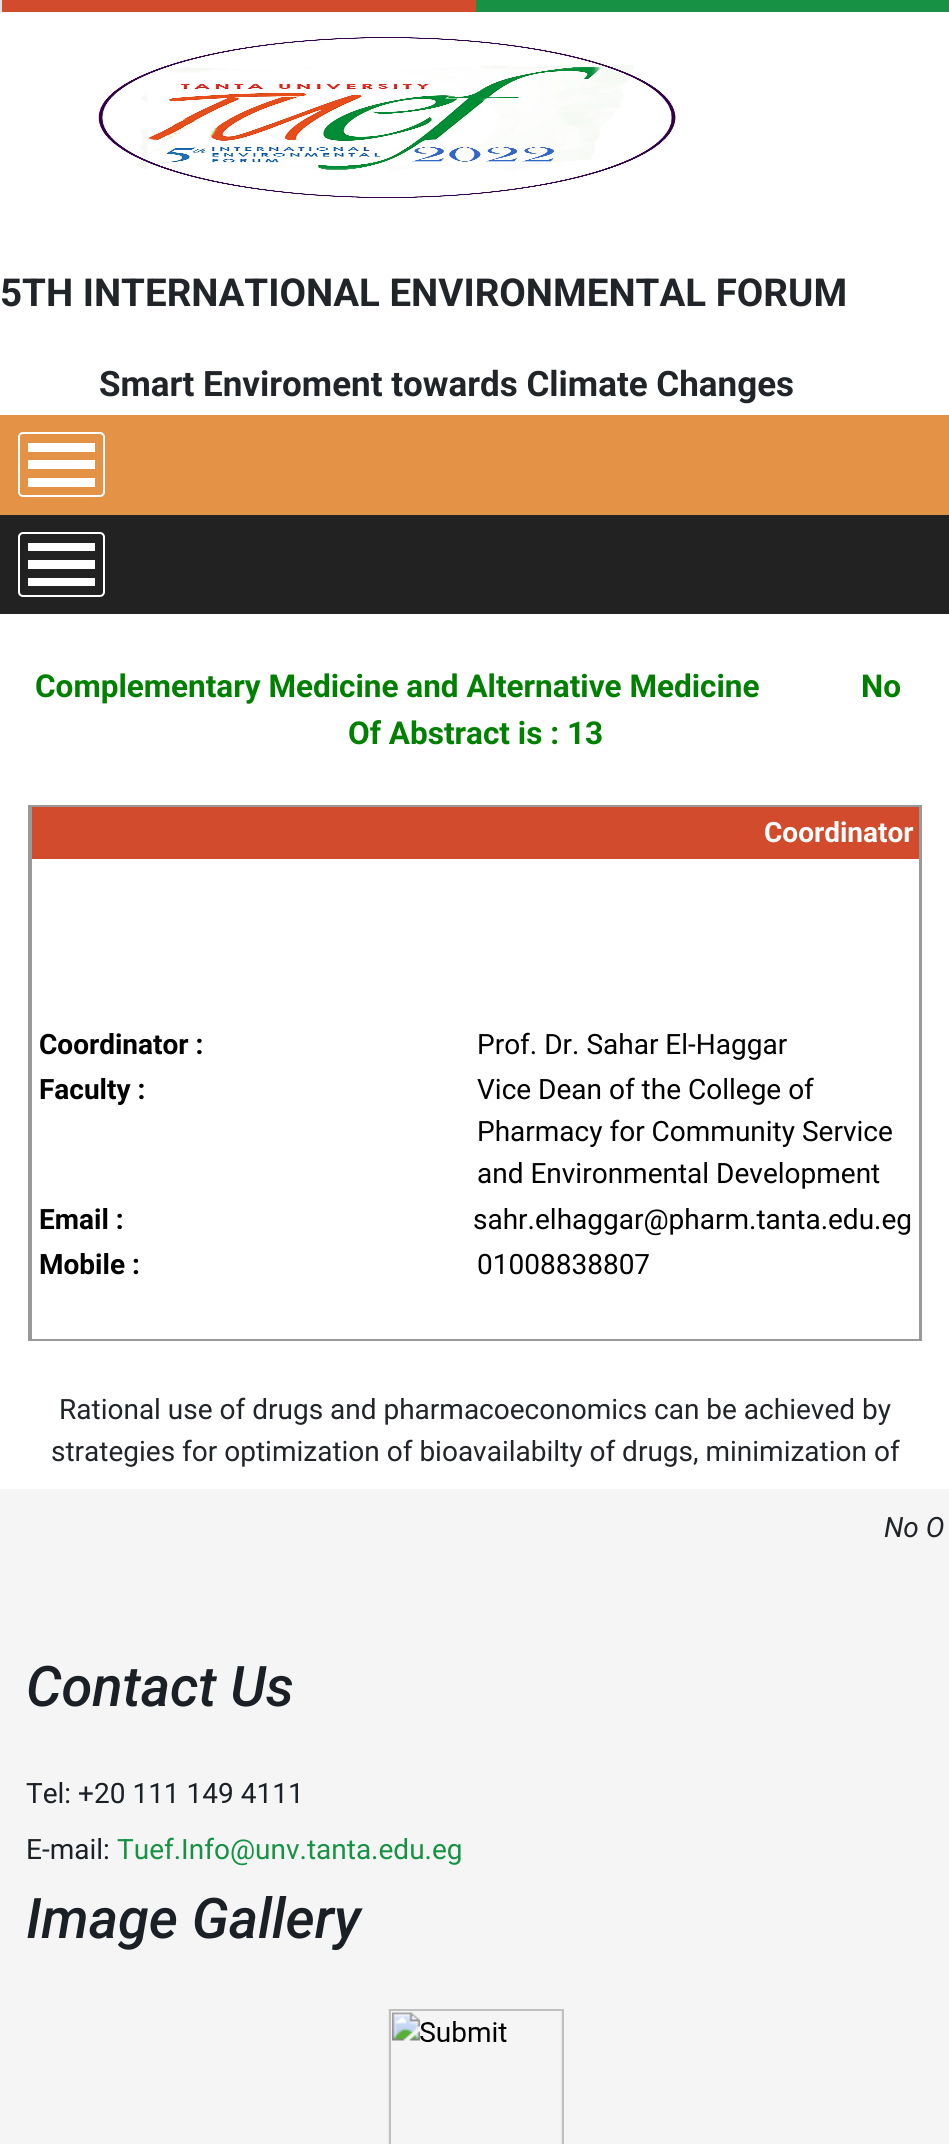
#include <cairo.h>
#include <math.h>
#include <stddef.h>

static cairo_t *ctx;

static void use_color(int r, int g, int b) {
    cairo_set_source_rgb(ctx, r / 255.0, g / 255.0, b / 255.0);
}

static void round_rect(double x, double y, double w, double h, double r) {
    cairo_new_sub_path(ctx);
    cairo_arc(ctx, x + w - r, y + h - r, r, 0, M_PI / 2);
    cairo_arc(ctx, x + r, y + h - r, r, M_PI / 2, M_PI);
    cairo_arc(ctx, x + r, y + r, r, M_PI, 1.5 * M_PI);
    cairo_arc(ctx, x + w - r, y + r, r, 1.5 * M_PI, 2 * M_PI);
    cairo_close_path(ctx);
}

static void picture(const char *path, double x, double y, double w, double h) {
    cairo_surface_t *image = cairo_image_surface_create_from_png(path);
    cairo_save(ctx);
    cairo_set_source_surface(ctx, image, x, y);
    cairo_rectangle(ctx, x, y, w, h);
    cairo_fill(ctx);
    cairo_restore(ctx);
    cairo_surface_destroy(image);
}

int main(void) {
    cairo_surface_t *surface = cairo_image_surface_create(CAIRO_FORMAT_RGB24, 949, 2144);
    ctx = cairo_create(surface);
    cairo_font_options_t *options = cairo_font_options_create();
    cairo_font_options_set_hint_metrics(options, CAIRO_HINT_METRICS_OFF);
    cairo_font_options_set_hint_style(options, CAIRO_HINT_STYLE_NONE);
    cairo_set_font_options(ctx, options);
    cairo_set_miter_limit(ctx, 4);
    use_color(255, 255, 255);
    cairo_paint(ctx);
    use_color(210, 75, 44);
    cairo_rectangle(ctx, 2, 0, 474, 12);
    cairo_fill(ctx);
    use_color(222, 226, 230);
    cairo_rectangle(ctx, 0, 0, 2, 12);
    cairo_fill(ctx);
    use_color(23, 146, 69);
    cairo_rectangle(ctx, 476, 0, 473, 12);
    cairo_fill(ctx);
    picture("img1.png", 98, 36, 578, 163);
    cairo_select_font_face(ctx, "Roboto", CAIRO_FONT_SLANT_NORMAL, CAIRO_FONT_WEIGHT_BOLD);
    cairo_set_font_size(ctx, 38.5);
    use_color(33, 37, 41);
    cairo_move_to(ctx, 0, 306);
    cairo_show_text(ctx, "5TH INTERNATIONAL ENVIRONMENTAL FORUM");
    cairo_set_font_size(ctx, 35);
    cairo_move_to(ctx, 99, 396);
    cairo_show_text(ctx, "Smart Enviroment towards Climate Changes");
    use_color(227, 146, 70);
    cairo_rectangle(ctx, 0, 415, 949, 100);
    cairo_fill(ctx);
    round_rect(19, 433, 85, 63, 4);
    use_color(255, 255, 255);
    cairo_stroke(ctx);
    cairo_rectangle(ctx, 28, 443, 67, 9);
    cairo_fill(ctx);
    cairo_rectangle(ctx, 28, 460, 67, 9);
    cairo_fill(ctx);
    cairo_rectangle(ctx, 28, 478, 67, 9);
    cairo_fill(ctx);
    use_color(34, 34, 34);
    cairo_rectangle(ctx, 0, 515, 949, 99);
    cairo_fill(ctx);
    round_rect(19, 533, 85, 63, 4);
    use_color(255, 255, 255);
    cairo_stroke(ctx);
    cairo_rectangle(ctx, 28, 543, 67, 8);
    cairo_fill(ctx);
    cairo_rectangle(ctx, 28, 560, 67, 9);
    cairo_fill(ctx);
    cairo_rectangle(ctx, 28, 578, 67, 8);
    cairo_fill(ctx);
    cairo_set_font_size(ctx, 31.5);
    use_color(0, 128, 0);
    cairo_move_to(ctx, 35, 697);
    cairo_show_text(ctx, "Complementary Medicine and Alternative Medicine");
    cairo_move_to(ctx, 861, 697);
    cairo_show_text(ctx, "No");
    cairo_move_to(ctx, 348, 744);
    cairo_show_text(ctx, "Of Abstract is : 13");
    cairo_rectangle(ctx, 29, 806, 892, 534);
    use_color(153, 153, 153);
    cairo_stroke(ctx);
    use_color(210, 75, 44);
    cairo_rectangle(ctx, 32, 807, 887, 52);
    cairo_fill(ctx);
    use_color(153, 153, 153);
    cairo_rectangle(ctx, 919, 807, 1, 532);
    cairo_fill(ctx);
    cairo_rectangle(ctx, 30, 807, 2, 532);
    cairo_fill(ctx);
    cairo_set_font_size(ctx, 28);
    use_color(255, 255, 255);
    cairo_move_to(ctx, 764, 842);
    cairo_show_text(ctx, "Coordinator");
    use_color(0, 0, 0);
    cairo_move_to(ctx, 39, 1054);
    cairo_show_text(ctx, "Coordinator :");
    cairo_select_font_face(ctx, "Roboto", CAIRO_FONT_SLANT_NORMAL, CAIRO_FONT_WEIGHT_NORMAL);
    cairo_move_to(ctx, 477, 1054);
    cairo_show_text(ctx, "Prof. Dr. Sahar El-Haggar");
    cairo_select_font_face(ctx, "Roboto", CAIRO_FONT_SLANT_NORMAL, CAIRO_FONT_WEIGHT_BOLD);
    cairo_move_to(ctx, 39, 1099);
    cairo_show_text(ctx, "Faculty :");
    cairo_select_font_face(ctx, "Roboto", CAIRO_FONT_SLANT_NORMAL, CAIRO_FONT_WEIGHT_NORMAL);
    cairo_move_to(ctx, 477, 1099);
    cairo_show_text(ctx, "Vice Dean of the College of");
    cairo_move_to(ctx, 477, 1141);
    cairo_show_text(ctx, "Pharmacy for Community Service");
    cairo_move_to(ctx, 477, 1183);
    cairo_show_text(ctx, "and Environmental Development");
    cairo_select_font_face(ctx, "Roboto", CAIRO_FONT_SLANT_NORMAL, CAIRO_FONT_WEIGHT_BOLD);
    cairo_move_to(ctx, 39, 1229);
    cairo_show_text(ctx, "Email :");
    cairo_select_font_face(ctx, "Roboto", CAIRO_FONT_SLANT_NORMAL, CAIRO_FONT_WEIGHT_NORMAL);
    cairo_move_to(ctx, 473, 1229);
    cairo_show_text(ctx, "sahr.elhaggar@pharm.tanta.edu.eg");
    cairo_select_font_face(ctx, "Roboto", CAIRO_FONT_SLANT_NORMAL, CAIRO_FONT_WEIGHT_BOLD);
    cairo_move_to(ctx, 39, 1274);
    cairo_show_text(ctx, "Mobile :");
    cairo_select_font_face(ctx, "Roboto", CAIRO_FONT_SLANT_NORMAL, CAIRO_FONT_WEIGHT_NORMAL);
    cairo_move_to(ctx, 477, 1274);
    cairo_show_text(ctx, "01008838807");
    use_color(33, 37, 41);
    cairo_move_to(ctx, 59, 1419);
    cairo_show_text(ctx, "Rational use of drugs and pharmacoeconomics can be achieved by");
    cairo_move_to(ctx, 51, 1461);
    cairo_show_text(ctx, "strategies for optimization of bioavailabilty of drugs, minimization of");
    use_color(245, 245, 245);
    cairo_rectangle(ctx, 0, 1489, 949, 655);
    cairo_fill(ctx);
    cairo_select_font_face(ctx, "Roboto", CAIRO_FONT_SLANT_ITALIC, CAIRO_FONT_WEIGHT_NORMAL);
    use_color(33, 37, 41);
    cairo_move_to(ctx, 884, 1537);
    cairo_show_text(ctx, "No O");
    cairo_select_font_face(ctx, "Roboto Medium", CAIRO_FONT_SLANT_ITALIC, CAIRO_FONT_WEIGHT_NORMAL);
    cairo_set_font_size(ctx, 56);
    use_color(26, 32, 38);
    cairo_move_to(ctx, 26, 1706);
    cairo_show_text(ctx, "Contact Us");
    cairo_select_font_face(ctx, "Roboto", CAIRO_FONT_SLANT_NORMAL, CAIRO_FONT_WEIGHT_NORMAL);
    cairo_set_font_size(ctx, 28);
    cairo_move_to(ctx, 26, 1803);
    cairo_show_text(ctx, "Tel: +20 111 149 4111");
    cairo_move_to(ctx, 26, 1859);
    cairo_show_text(ctx, "E-mail:");
    use_color(23, 146, 69);
    cairo_move_to(ctx, 117, 1859);
    cairo_show_text(ctx, "Tuef.Info@unv.tanta.edu.eg");
    cairo_select_font_face(ctx, "Roboto Medium", CAIRO_FONT_SLANT_ITALIC, CAIRO_FONT_WEIGHT_NORMAL);
    cairo_set_font_size(ctx, 56);
    use_color(26, 32, 38);
    cairo_move_to(ctx, 26, 1938);
    cairo_show_text(ctx, "Image Gallery");
    picture("img2.png", 388, 2009, 174, 135);
    cairo_rectangle(ctx, 390, 2010, 173, 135);
    use_color(192, 192, 192);
    cairo_stroke(ctx);
    cairo_surface_write_to_png(surface, "result.png");
    cairo_font_options_destroy(options);
    cairo_destroy(ctx);
    cairo_surface_destroy(surface);
    return 0;
}
